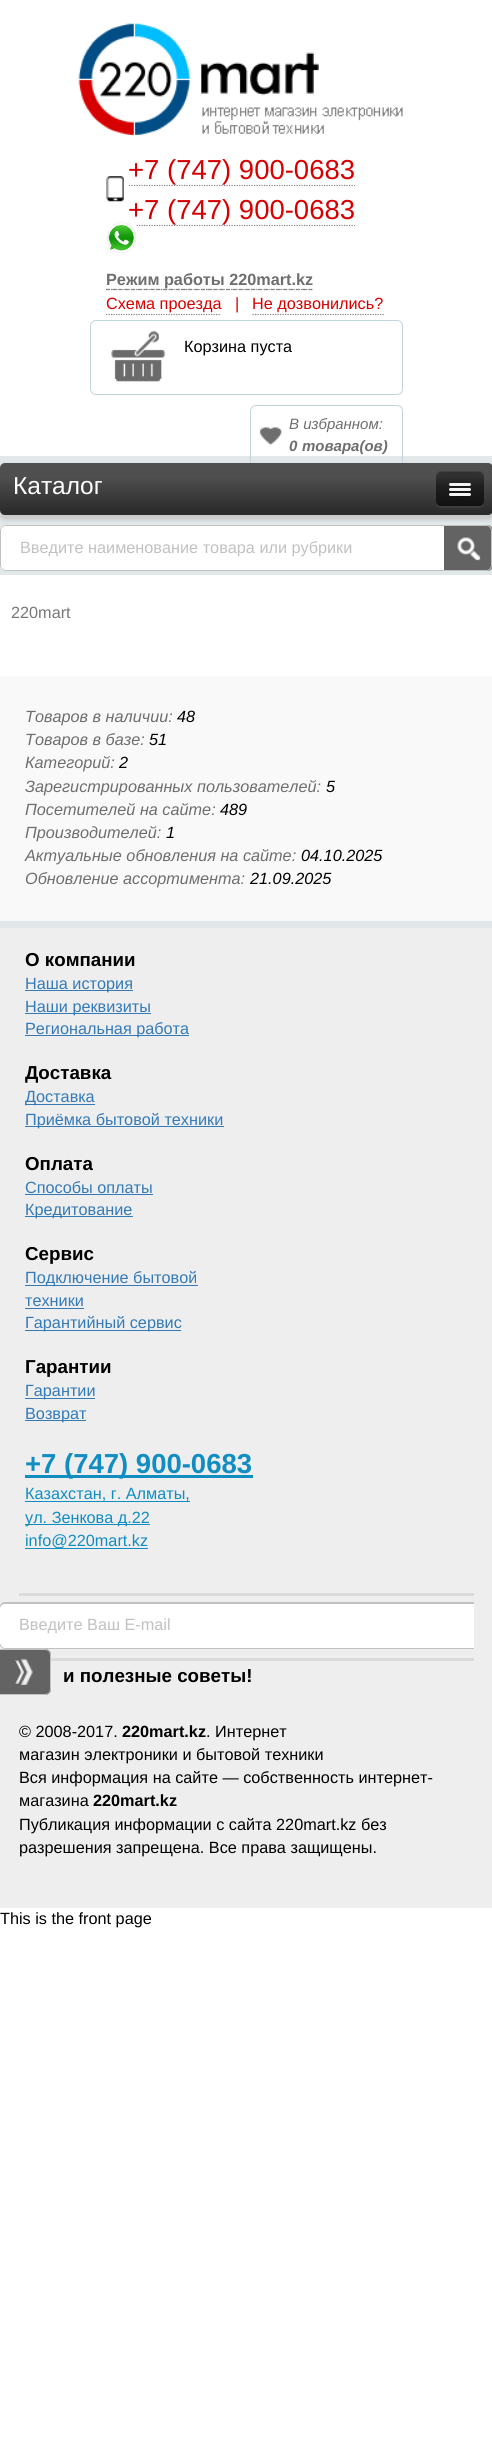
#include <cairo.h>
#include <math.h>
#include <stddef.h>

static cairo_t *ctx;

static void use_color(int r, int g, int b) {
    cairo_set_source_rgb(ctx, r / 255.0, g / 255.0, b / 255.0);
}

static void round_rect(double x, double y, double w, double h, double r) {
    cairo_new_sub_path(ctx);
    cairo_arc(ctx, x + w - r, y + h - r, r, 0, M_PI / 2);
    cairo_arc(ctx, x + r, y + h - r, r, M_PI / 2, M_PI);
    cairo_arc(ctx, x + r, y + r, r, M_PI, 1.5 * M_PI);
    cairo_arc(ctx, x + w - r, y + r, r, 1.5 * M_PI, 2 * M_PI);
    cairo_close_path(ctx);
}

static void shadow(double x, double y, double w, double h, double r, double blur, double alpha) {
    cairo_push_group_with_content(ctx, CAIRO_CONTENT_ALPHA);
    cairo_set_operator(ctx, CAIRO_OPERATOR_SOURCE);
    for (int i = 15; i >= -15 && fmin(w, h) + blur * i / 3 > 0; i -= 2) {
        double e = blur * i / 6;
        cairo_set_source_rgba(ctx, 0, 0, 0, alpha * erfc((i - 1) / 8.5) / 2);
        round_rect(x - e, y - e, w + 2 * e, h + 2 * e, fmax(0, fmin(r + e + blur * .6, fmin(w, h) / 2 + e)));
        cairo_fill(ctx);
    }
    cairo_pattern_t *soft = cairo_pop_group(ctx);
    cairo_mask(ctx, soft);
    cairo_pattern_destroy(soft);
}

static void picture(const char *path, double x, double y, double w, double h) {
    cairo_surface_t *image = cairo_image_surface_create_from_png(path);
    cairo_save(ctx);
    cairo_set_source_surface(ctx, image, x, y);
    cairo_rectangle(ctx, x, y, w, h);
    cairo_fill(ctx);
    cairo_restore(ctx);
    cairo_surface_destroy(image);
}

int main(void) {
    cairo_surface_t *surface = cairo_image_surface_create(CAIRO_FORMAT_RGB24, 492, 2451);
    ctx = cairo_create(surface);
    cairo_font_options_t *options = cairo_font_options_create();
    cairo_font_options_set_hint_metrics(options, CAIRO_HINT_METRICS_OFF);
    cairo_font_options_set_hint_style(options, CAIRO_HINT_STYLE_NONE);
    cairo_set_font_options(ctx, options);
    cairo_set_miter_limit(ctx, 4);
    cairo_pattern_t *gradient;
    use_color(255, 255, 255);
    cairo_paint(ctx);
    picture("img1.png", 78, 23, 325, 112);
    picture("img2.png", 106, 176, 18, 26);
    cairo_new_path(ctx);
    cairo_move_to(ctx, 129, 185.5);
    cairo_line_to(ctx, 355, 185.5);
    use_color(133, 133, 133);
    cairo_set_line_width(ctx, 1.2);
    cairo_set_dash(ctx, (double[]){1.25, 1.25}, 2, 0);
    cairo_stroke(ctx);
    cairo_select_font_face(ctx, "Liberation Sans", CAIRO_FONT_SLANT_NORMAL, CAIRO_FONT_WEIGHT_NORMAL);
    cairo_set_font_size(ctx, 27.5);
    use_color(214, 0, 0);
    cairo_move_to(ctx, 128, 179);
    cairo_show_text(ctx, "+7 (747) 900-0683");
    cairo_new_path(ctx);
    cairo_move_to(ctx, 129, 225.5);
    cairo_line_to(ctx, 355, 225.5);
    use_color(133, 133, 133);
    cairo_stroke(ctx);
    use_color(214, 0, 0);
    cairo_move_to(ctx, 128, 219);
    cairo_show_text(ctx, "+7 (747) 900-0683");
    picture("img3.png", 106, 222, 31, 32);
    cairo_new_path(ctx);
    cairo_move_to(ctx, 106, 289.5);
    cairo_line_to(ctx, 312.5, 289.5);
    use_color(133, 133, 133);
    cairo_stroke(ctx);
    cairo_new_path(ctx);
    cairo_move_to(ctx, 106, 289.5);
    cairo_line_to(ctx, 312.5, 289.5);
    cairo_set_dash(ctx, (double[]){3.75, 2.58}, 2, 0);
    cairo_stroke(ctx);
    cairo_select_font_face(ctx, "Liberation Sans", CAIRO_FONT_SLANT_NORMAL, CAIRO_FONT_WEIGHT_BOLD);
    cairo_set_font_size(ctx, 16.25);
    use_color(110, 110, 110);
    cairo_move_to(ctx, 106, 285);
    cairo_show_text(ctx, "Режим работы 220mart.kz");
    cairo_select_font_face(ctx, "Liberation Sans", CAIRO_FONT_SLANT_NORMAL, CAIRO_FONT_WEIGHT_NORMAL);
    use_color(214, 0, 0);
    cairo_move_to(ctx, 106, 309);
    cairo_show_text(ctx, "Схема проезда");
    cairo_new_path(ctx);
    cairo_move_to(ctx, 106, 314.5);
    cairo_line_to(ctx, 221, 314.5);
    use_color(133, 133, 133);
    cairo_set_dash(ctx, (double[]){1.25, 1.25}, 2, 0);
    cairo_stroke(ctx);
    use_color(214, 0, 0);
    cairo_move_to(ctx, 235, 309);
    cairo_show_text(ctx, "|");
    cairo_move_to(ctx, 252, 309);
    cairo_show_text(ctx, "Не дозвонились?");
    cairo_new_path(ctx);
    cairo_move_to(ctx, 252.5, 314.5);
    cairo_line_to(ctx, 384, 314.5);
    use_color(133, 133, 133);
    cairo_stroke(ctx);
    round_rect(90.5, 320.5, 312, 74, 5.5);
    use_color(193, 212, 220);
    cairo_set_line_width(ctx, 1);
    cairo_set_dash(ctx, NULL, 0, 0);
    cairo_stroke(ctx);
    picture("img4.png", 111, 331, 55, 51);
    use_color(0, 0, 0);
    cairo_move_to(ctx, 184, 352);
    cairo_show_text(ctx, "Корзина пуста");
    picture("img5.png", 259, 427, 23, 19);
    use_color(226, 231, 234);
    cairo_rectangle(ctx, 0, 456, 492, 119);
    cairo_fill(ctx);
    round_rect(250.5, 405.5, 152, 65, 5.5);
    use_color(193, 212, 220);
    cairo_stroke(ctx);
    cairo_select_font_face(ctx, "Liberation Sans", CAIRO_FONT_SLANT_ITALIC, CAIRO_FONT_WEIGHT_NORMAL);
    cairo_set_font_size(ctx, 15);
    use_color(110, 110, 110);
    cairo_move_to(ctx, 289, 429);
    cairo_show_text(ctx, "В избранном:");
    cairo_select_font_face(ctx, "Liberation Sans", CAIRO_FONT_SLANT_ITALIC, CAIRO_FONT_WEIGHT_BOLD);
    cairo_move_to(ctx, 289, 451);
    cairo_show_text(ctx, "0");
    cairo_move_to(ctx, 302, 451);
    cairo_show_text(ctx, "товара(ов)");
    use_color(255, 255, 255);
    cairo_new_path(ctx);
    cairo_move_to(ctx, 6, 525);
    cairo_line_to(ctx, 444, 525);
    cairo_line_to(ctx, 444, 571);
    cairo_line_to(ctx, 6, 571);
    cairo_curve_to(ctx, 2.5, 571, 0, 568.5, 0, 565);
    cairo_line_to(ctx, 0, 531);
    cairo_curve_to(ctx, 0, 527.5, 2.5, 525, 6, 525);
    cairo_close_path(ctx);
    cairo_fill(ctx);
    use_color(193, 193, 193);
    cairo_set_fill_rule(ctx, CAIRO_FILL_RULE_EVEN_ODD);
    cairo_new_path(ctx);
    cairo_move_to(ctx, 6, 525);
    cairo_line_to(ctx, 444, 525);
    cairo_line_to(ctx, 444, 571);
    cairo_line_to(ctx, 6, 571);
    cairo_curve_to(ctx, 3, 571, 0, 568, 0, 565);
    cairo_line_to(ctx, 0, 531);
    cairo_curve_to(ctx, 0, 528, 3, 525, 6, 525);
    cairo_close_path(ctx);
    cairo_move_to(ctx, 6, 526);
    cairo_line_to(ctx, 444, 526);
    cairo_line_to(ctx, 444, 570);
    cairo_line_to(ctx, 6, 570);
    cairo_curve_to(ctx, 3, 570, 1, 568, 1, 565);
    cairo_line_to(ctx, 1, 531);
    cairo_curve_to(ctx, 1, 528, 3, 526, 6, 526);
    cairo_close_path(ctx);
    cairo_fill(ctx);
    use_color(99, 99, 99);
    cairo_new_path(ctx);
    cairo_move_to(ctx, 444, 525);
    cairo_line_to(ctx, 487, 525);
    cairo_curve_to(ctx, 490.5, 525, 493, 527.5, 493, 531);
    cairo_line_to(ctx, 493, 565);
    cairo_curve_to(ctx, 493, 568.5, 490.5, 571, 487, 571);
    cairo_line_to(ctx, 444, 571);
    cairo_close_path(ctx);
    cairo_fill(ctx);
    picture("img6.png", 456, 536, 25, 25);
    use_color(193, 193, 193);
    cairo_new_path(ctx);
    cairo_move_to(ctx, 444, 525);
    cairo_line_to(ctx, 486, 525);
    cairo_curve_to(ctx, 490, 525, 492, 528, 492, 531);
    cairo_line_to(ctx, 492, 565);
    cairo_curve_to(ctx, 492, 568, 490, 571, 486, 571);
    cairo_line_to(ctx, 444, 571);
    cairo_close_path(ctx);
    cairo_move_to(ctx, 444, 526);
    cairo_line_to(ctx, 486, 526);
    cairo_curve_to(ctx, 489, 526, 491, 528, 491, 531);
    cairo_line_to(ctx, 491, 565);
    cairo_curve_to(ctx, 491, 568, 489, 570, 486, 570);
    cairo_line_to(ctx, 444, 570);
    cairo_close_path(ctx);
    cairo_fill(ctx);
    use_color(199, 199, 199);
    shadow(-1, 465, 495, 55, 6, 2, 1);
    gradient = cairo_pattern_create_linear(246, 515, 246, 463);
    cairo_pattern_add_color_stop_rgba(gradient, 0.04, 0.169, 0.169, 0.169, 1);
    cairo_pattern_add_color_stop_rgba(gradient, 0.36, 0.231, 0.231, 0.231, 1);
    cairo_pattern_add_color_stop_rgba(gradient, 0.75, 0.31, 0.31, 0.31, 1);
    cairo_set_source(ctx, gradient);
    cairo_pattern_destroy(gradient);
    round_rect(0, 463, 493, 52, 5);
    cairo_fill(ctx);
    cairo_select_font_face(ctx, "Liberation Sans", CAIRO_FONT_SLANT_NORMAL, CAIRO_FONT_WEIGHT_NORMAL);
    cairo_set_font_size(ctx, 24.5);
    use_color(255, 255, 255);
    cairo_move_to(ctx, 13, 494);
    cairo_show_text(ctx, "Каталог");
    cairo_set_source_rgba(ctx, 1, 1, 1, 0.07);
    cairo_set_fill_rule(ctx, CAIRO_FILL_RULE_WINDING);
    cairo_new_path(ctx);
    cairo_move_to(ctx, 436, 476);
    cairo_line_to(ctx, 436, 495);
    cairo_curve_to(ctx, 436, 507, 435, 508, 447, 508);
    cairo_line_to(ctx, 473, 508);
    cairo_curve_to(ctx, 485, 508, 484, 507, 484, 495);
    cairo_line_to(ctx, 484, 476);
    cairo_line_to(ctx, 484, 501);
    cairo_curve_to(ctx, 484, 504, 482, 506, 479, 506);
    cairo_line_to(ctx, 441, 506);
    cairo_curve_to(ctx, 438, 506, 436, 504, 436, 501);
    cairo_close_path(ctx);
    cairo_fill(ctx);
    gradient = cairo_pattern_create_linear(460, 506, 460, 471);
    cairo_pattern_add_color_stop_rgba(gradient, 0.01, 0.067, 0.067, 0.067, 1);
    cairo_pattern_add_color_stop_rgba(gradient, 0.57, 0.122, 0.122, 0.122, 1);
    cairo_pattern_add_color_stop_rgba(gradient, 0.85, 0.188, 0.188, 0.188, 1);
    cairo_set_source(ctx, gradient);
    cairo_pattern_destroy(gradient);
    round_rect(436, 471, 48, 35, 5);
    cairo_fill(ctx);
    cairo_set_source_rgba(ctx, 1, 1, 1, 0.1);
    cairo_new_path(ctx);
    cairo_move_to(ctx, 441, 472);
    cairo_line_to(ctx, 479, 472);
    cairo_curve_to(ctx, 482, 472, 484, 475, 484, 478);
    cairo_curve_to(ctx, 484, 470, 480, 471, 473, 471);
    cairo_line_to(ctx, 447, 471);
    cairo_curve_to(ctx, 440, 471, 436, 470, 436, 478);
    cairo_curve_to(ctx, 436, 475, 438, 472, 441, 472);
    cairo_close_path(ctx);
    cairo_fill(ctx);
    use_color(24, 24, 24);
    cairo_new_path(ctx);
    cairo_move_to(ctx, 449, 484.5);
    cairo_curve_to(ctx, 447.5, 487.5, 453, 487, 453.5, 487);
    cairo_line_to(ctx, 466.5, 487);
    cairo_curve_to(ctx, 467, 487, 472.5, 487.5, 471, 484.5);
    cairo_curve_to(ctx, 470, 485, 450, 485, 449, 484.5);
    cairo_close_path(ctx);
    cairo_fill(ctx);
    use_color(245, 245, 245);
    round_rect(449, 483, 22, 3, 1.5);
    cairo_fill(ctx);
    use_color(21, 21, 21);
    cairo_new_path(ctx);
    cairo_move_to(ctx, 449, 489.5);
    cairo_curve_to(ctx, 447.5, 492.5, 453, 492, 453.5, 492);
    cairo_line_to(ctx, 466.5, 492);
    cairo_curve_to(ctx, 467, 492, 472.5, 492.5, 471, 489.5);
    cairo_curve_to(ctx, 470, 490, 450, 490, 449, 489.5);
    cairo_close_path(ctx);
    cairo_fill(ctx);
    use_color(245, 245, 245);
    round_rect(449, 488, 22, 3, 1.5);
    cairo_fill(ctx);
    use_color(18, 18, 18);
    cairo_new_path(ctx);
    cairo_move_to(ctx, 449, 494.5);
    cairo_curve_to(ctx, 447.5, 497.5, 453, 497, 453.5, 497);
    cairo_line_to(ctx, 466.5, 497);
    cairo_curve_to(ctx, 467, 497, 472.5, 497.5, 471, 494.5);
    cairo_curve_to(ctx, 470, 495, 450, 495, 449, 494.5);
    cairo_close_path(ctx);
    cairo_fill(ctx);
    use_color(245, 245, 245);
    round_rect(449, 493, 22, 3, 1.5);
    cairo_fill(ctx);
    cairo_set_font_size(ctx, 16.25);
    use_color(193, 193, 193);
    cairo_move_to(ctx, 20, 553);
    cairo_show_text(ctx, "Введите наименование товара или рубрики");
    use_color(119, 119, 119);
    cairo_move_to(ctx, 11, 618);
    cairo_show_text(ctx, "220mart");
    use_color(249, 249, 249);
    cairo_rectangle(ctx, 0, 676, 492, 245);
    cairo_fill(ctx);
    cairo_select_font_face(ctx, "Liberation Sans", CAIRO_FONT_SLANT_ITALIC, CAIRO_FONT_WEIGHT_NORMAL);
    use_color(110, 110, 110);
    cairo_move_to(ctx, 25, 722);
    cairo_show_text(ctx, "Товаров в наличии:");
    use_color(0, 0, 0);
    cairo_move_to(ctx, 177, 722);
    cairo_show_text(ctx, "48");
    use_color(110, 110, 110);
    cairo_move_to(ctx, 25, 745);
    cairo_show_text(ctx, "Товаров в базе:");
    use_color(0, 0, 0);
    cairo_move_to(ctx, 149, 745);
    cairo_show_text(ctx, "51");
    use_color(110, 110, 110);
    cairo_move_to(ctx, 25, 768);
    cairo_show_text(ctx, "Категорий:");
    use_color(0, 0, 0);
    cairo_move_to(ctx, 119, 768);
    cairo_show_text(ctx, "2");
    use_color(110, 110, 110);
    cairo_move_to(ctx, 25, 792);
    cairo_show_text(ctx, "Зарегистрированных пользователей:");
    use_color(0, 0, 0);
    cairo_move_to(ctx, 326, 792);
    cairo_show_text(ctx, "5");
    use_color(110, 110, 110);
    cairo_move_to(ctx, 25, 815);
    cairo_show_text(ctx, "Посетителей на сайте:");
    use_color(0, 0, 0);
    cairo_move_to(ctx, 220, 815);
    cairo_show_text(ctx, "489");
    use_color(110, 110, 110);
    cairo_move_to(ctx, 25, 838);
    cairo_show_text(ctx, "Производителей:");
    use_color(0, 0, 0);
    cairo_move_to(ctx, 166, 838);
    cairo_show_text(ctx, "1");
    use_color(110, 110, 110);
    cairo_move_to(ctx, 25, 861);
    cairo_show_text(ctx, "Актуальные обновления на сайте:");
    use_color(0, 0, 0);
    cairo_move_to(ctx, 301, 861);
    cairo_show_text(ctx, "04.10.2025");
    use_color(110, 110, 110);
    cairo_move_to(ctx, 25, 884);
    cairo_show_text(ctx, "Обновление ассортимента:");
    use_color(0, 0, 0);
    cairo_move_to(ctx, 250, 884);
    cairo_show_text(ctx, "21.09.2025");
    use_color(238, 238, 238);
    cairo_rectangle(ctx, 0, 928, 492, 980);
    cairo_fill(ctx);
    use_color(226, 231, 234);
    cairo_rectangle(ctx, 0, 921, 492, 7);
    cairo_fill(ctx);
    cairo_select_font_face(ctx, "Liberation Sans", CAIRO_FONT_SLANT_NORMAL, CAIRO_FONT_WEIGHT_BOLD);
    cairo_set_font_size(ctx, 18.75);
    use_color(0, 0, 0);
    cairo_move_to(ctx, 25, 966);
    cairo_show_text(ctx, "О компании");
    use_color(51, 122, 183);
    cairo_rectangle(ctx, 25, 990, 108, 1);
    cairo_fill(ctx);
    cairo_select_font_face(ctx, "Liberation Sans", CAIRO_FONT_SLANT_NORMAL, CAIRO_FONT_WEIGHT_NORMAL);
    cairo_set_font_size(ctx, 16.25);
    cairo_move_to(ctx, 25, 989);
    cairo_show_text(ctx, "Наша история");
    cairo_rectangle(ctx, 25, 1013, 126, 1);
    cairo_fill(ctx);
    cairo_move_to(ctx, 25, 1012);
    cairo_show_text(ctx, "Наши реквизиты");
    cairo_rectangle(ctx, 25, 1035, 164, 1);
    cairo_fill(ctx);
    cairo_move_to(ctx, 25, 1034);
    cairo_show_text(ctx, "Региональная работа");
    cairo_select_font_face(ctx, "Liberation Sans", CAIRO_FONT_SLANT_NORMAL, CAIRO_FONT_WEIGHT_BOLD);
    cairo_set_font_size(ctx, 18.75);
    use_color(0, 0, 0);
    cairo_move_to(ctx, 25, 1079);
    cairo_show_text(ctx, "Доставка");
    use_color(51, 122, 183);
    cairo_rectangle(ctx, 25, 1104, 70, 1);
    cairo_fill(ctx);
    cairo_select_font_face(ctx, "Liberation Sans", CAIRO_FONT_SLANT_NORMAL, CAIRO_FONT_WEIGHT_NORMAL);
    cairo_set_font_size(ctx, 16.25);
    cairo_move_to(ctx, 25, 1102);
    cairo_show_text(ctx, "Доставка");
    cairo_rectangle(ctx, 25, 1126, 199, 1);
    cairo_fill(ctx);
    cairo_move_to(ctx, 25, 1125);
    cairo_show_text(ctx, "Приёмка бытовой техники");
    cairo_select_font_face(ctx, "Liberation Sans", CAIRO_FONT_SLANT_NORMAL, CAIRO_FONT_WEIGHT_BOLD);
    cairo_set_font_size(ctx, 18.75);
    use_color(0, 0, 0);
    cairo_move_to(ctx, 25, 1170);
    cairo_show_text(ctx, "Оплата");
    cairo_select_font_face(ctx, "Liberation Sans", CAIRO_FONT_SLANT_NORMAL, CAIRO_FONT_WEIGHT_NORMAL);
    cairo_set_font_size(ctx, 16.25);
    use_color(51, 122, 183);
    cairo_move_to(ctx, 25, 1193);
    cairo_show_text(ctx, "Способы оплаты");
    cairo_rectangle(ctx, 25, 1194, 128, 1);
    cairo_fill(ctx);
    cairo_rectangle(ctx, 25, 1216, 108, 1);
    cairo_fill(ctx);
    cairo_move_to(ctx, 25, 1215);
    cairo_show_text(ctx, "Кредитование");
    cairo_select_font_face(ctx, "Liberation Sans", CAIRO_FONT_SLANT_NORMAL, CAIRO_FONT_WEIGHT_BOLD);
    cairo_set_font_size(ctx, 18.75);
    use_color(0, 0, 0);
    cairo_move_to(ctx, 25, 1260);
    cairo_show_text(ctx, "Сервис");
    use_color(51, 122, 183);
    cairo_rectangle(ctx, 25, 1285, 173, 1);
    cairo_fill(ctx);
    cairo_select_font_face(ctx, "Liberation Sans", CAIRO_FONT_SLANT_NORMAL, CAIRO_FONT_WEIGHT_NORMAL);
    cairo_set_font_size(ctx, 16.25);
    cairo_move_to(ctx, 25, 1283);
    cairo_show_text(ctx, "Подключение бытовой");
    cairo_move_to(ctx, 25, 1306);
    cairo_show_text(ctx, "техники");
    cairo_rectangle(ctx, 25, 1308, 59, 1);
    cairo_fill(ctx);
    cairo_rectangle(ctx, 25, 1330, 156, 1);
    cairo_fill(ctx);
    cairo_move_to(ctx, 25, 1328);
    cairo_show_text(ctx, "Гарантийный сервис");
    cairo_select_font_face(ctx, "Liberation Sans", CAIRO_FONT_SLANT_NORMAL, CAIRO_FONT_WEIGHT_BOLD);
    cairo_set_font_size(ctx, 18.75);
    use_color(0, 0, 0);
    cairo_move_to(ctx, 25, 1373);
    cairo_show_text(ctx, "Гарантии");
    use_color(51, 122, 183);
    cairo_rectangle(ctx, 25, 1398, 70, 1);
    cairo_fill(ctx);
    cairo_select_font_face(ctx, "Liberation Sans", CAIRO_FONT_SLANT_NORMAL, CAIRO_FONT_WEIGHT_NORMAL);
    cairo_set_font_size(ctx, 16.25);
    cairo_move_to(ctx, 25, 1396);
    cairo_show_text(ctx, "Гарантии");
    cairo_rectangle(ctx, 25, 1420, 61, 1);
    cairo_fill(ctx);
    cairo_move_to(ctx, 25, 1419);
    cairo_show_text(ctx, "Возврат");
    use_color(16, 141, 193);
    cairo_rectangle(ctx, 25, 1475, 228, 3);
    cairo_fill(ctx);
    cairo_select_font_face(ctx, "Liberation Sans", CAIRO_FONT_SLANT_NORMAL, CAIRO_FONT_WEIGHT_BOLD);
    cairo_set_font_size(ctx, 27.5);
    cairo_move_to(ctx, 25, 1473);
    cairo_show_text(ctx, "+7 (747) 900-0683");
    cairo_rectangle(ctx, 25, 1501, 165, 1);
    cairo_fill(ctx);
    cairo_select_font_face(ctx, "Liberation Sans", CAIRO_FONT_SLANT_NORMAL, CAIRO_FONT_WEIGHT_NORMAL);
    cairo_set_font_size(ctx, 16.25);
    cairo_move_to(ctx, 25, 1499);
    cairo_show_text(ctx, "Казахстан, г. Алматы,");
    cairo_rectangle(ctx, 25, 1524, 125, 1);
    cairo_fill(ctx);
    cairo_move_to(ctx, 25, 1523);
    cairo_show_text(ctx, "ул. Зенкова д.22");
    cairo_rectangle(ctx, 25, 1548, 123, 1);
    cairo_fill(ctx);
    cairo_move_to(ctx, 25, 1546);
    cairo_show_text(ctx, "info@220mart.kz");
    use_color(219, 219, 219);
    cairo_rectangle(ctx, 19, 1593, 455, 3);
    cairo_fill(ctx);
    cairo_rectangle(ctx, 51, 1658, 423, 3);
    cairo_fill(ctx);
    use_color(255, 255, 255);
    cairo_new_path(ctx);
    cairo_move_to(ctx, 5, 1603);
    cairo_line_to(ctx, 474, 1603);
    cairo_line_to(ctx, 474, 1649);
    cairo_line_to(ctx, 5, 1649);
    cairo_curve_to(ctx, 1.5, 1649, -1, 1646.5, -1, 1643);
    cairo_line_to(ctx, -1, 1609);
    cairo_curve_to(ctx, -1, 1605.5, 1.5, 1603, 5, 1603);
    cairo_close_path(ctx);
    cairo_fill(ctx);
    use_color(193, 193, 193);
    cairo_set_fill_rule(ctx, CAIRO_FILL_RULE_EVEN_ODD);
    cairo_new_path(ctx);
    cairo_move_to(ctx, 5, 1602);
    cairo_line_to(ctx, 474, 1602);
    cairo_line_to(ctx, 474, 1649);
    cairo_line_to(ctx, 5, 1649);
    cairo_curve_to(ctx, 2, 1649, -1, 1646, -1, 1642);
    cairo_line_to(ctx, -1, 1609);
    cairo_curve_to(ctx, -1, 1605, 2, 1602, 5, 1602);
    cairo_close_path(ctx);
    cairo_move_to(ctx, 5, 1604);
    cairo_line_to(ctx, 474, 1604);
    cairo_line_to(ctx, 474, 1648);
    cairo_line_to(ctx, 5, 1648);
    cairo_curve_to(ctx, 2, 1648, 0, 1645, 0, 1642);
    cairo_line_to(ctx, 0, 1609);
    cairo_curve_to(ctx, 0, 1606, 2, 1604, 5, 1604);
    cairo_close_path(ctx);
    cairo_fill(ctx);
    cairo_move_to(ctx, 19, 1630);
    cairo_show_text(ctx, "Введите Ваш E-mail");
    use_color(99, 99, 99);
    cairo_new_path(ctx);
    cairo_move_to(ctx, -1, 1649);
    cairo_line_to(ctx, 45, 1649);
    cairo_curve_to(ctx, 48.5, 1649, 51, 1651.5, 51, 1655);
    cairo_line_to(ctx, 51, 1689);
    cairo_curve_to(ctx, 51, 1692.5, 48.5, 1695, 45, 1695);
    cairo_line_to(ctx, -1, 1695);
    cairo_close_path(ctx);
    cairo_fill(ctx);
    picture("img7.png", 15, 1658, 18, 27);
    use_color(193, 193, 193);
    cairo_new_path(ctx);
    cairo_move_to(ctx, -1, 1649);
    cairo_line_to(ctx, 45, 1649);
    cairo_curve_to(ctx, 48, 1649, 51, 1652, 51, 1655);
    cairo_line_to(ctx, 51, 1689);
    cairo_curve_to(ctx, 51, 1692, 48, 1695, 45, 1695);
    cairo_line_to(ctx, -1, 1695);
    cairo_close_path(ctx);
    cairo_move_to(ctx, -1, 1650);
    cairo_line_to(ctx, 45, 1650);
    cairo_curve_to(ctx, 48, 1650, 50, 1652, 50, 1655);
    cairo_line_to(ctx, 50, 1689);
    cairo_curve_to(ctx, 50, 1692, 48, 1694, 45, 1694);
    cairo_line_to(ctx, -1, 1694);
    cairo_close_path(ctx);
    cairo_fill(ctx);
    cairo_select_font_face(ctx, "Liberation Sans", CAIRO_FONT_SLANT_NORMAL, CAIRO_FONT_WEIGHT_BOLD);
    cairo_set_font_size(ctx, 18.75);
    use_color(0, 0, 0);
    cairo_move_to(ctx, 63, 1682);
    cairo_show_text(ctx, "и полезные советы!");
    cairo_select_font_face(ctx, "Liberation Sans", CAIRO_FONT_SLANT_NORMAL, CAIRO_FONT_WEIGHT_NORMAL);
    cairo_set_font_size(ctx, 16.25);
    cairo_move_to(ctx, 19, 1737);
    cairo_show_text(ctx, "© 2008-2017.");
    cairo_select_font_face(ctx, "Liberation Sans", CAIRO_FONT_SLANT_NORMAL, CAIRO_FONT_WEIGHT_BOLD);
    cairo_move_to(ctx, 122, 1737);
    cairo_show_text(ctx, "220mart.kz");
    cairo_select_font_face(ctx, "Liberation Sans", CAIRO_FONT_SLANT_NORMAL, CAIRO_FONT_WEIGHT_NORMAL);
    cairo_move_to(ctx, 206, 1737);
    cairo_show_text(ctx, ". Интернет");
    cairo_move_to(ctx, 19, 1760);
    cairo_show_text(ctx, "магазин электроники и бытовой техники");
    cairo_move_to(ctx, 19, 1783);
    cairo_show_text(ctx, "Вся информация на сайте — собственность интернет-");
    cairo_move_to(ctx, 19, 1806);
    cairo_show_text(ctx, "магазина");
    cairo_select_font_face(ctx, "Liberation Sans", CAIRO_FONT_SLANT_NORMAL, CAIRO_FONT_WEIGHT_BOLD);
    cairo_move_to(ctx, 93, 1806);
    cairo_show_text(ctx, "220mart.kz");
    cairo_select_font_face(ctx, "Liberation Sans", CAIRO_FONT_SLANT_NORMAL, CAIRO_FONT_WEIGHT_NORMAL);
    cairo_move_to(ctx, 19, 1830);
    cairo_show_text(ctx, "Публикация информации с сайта 220mart.kz без");
    cairo_move_to(ctx, 19, 1853);
    cairo_show_text(ctx, "разрешения запрещена. Все права защищены.");
    cairo_move_to(ctx, 0, 1924);
    cairo_show_text(ctx, "This is the front page");
    cairo_surface_write_to_png(surface, "result.png");
    cairo_font_options_destroy(options);
    cairo_destroy(ctx);
    cairo_surface_destroy(surface);
    return 0;
}
